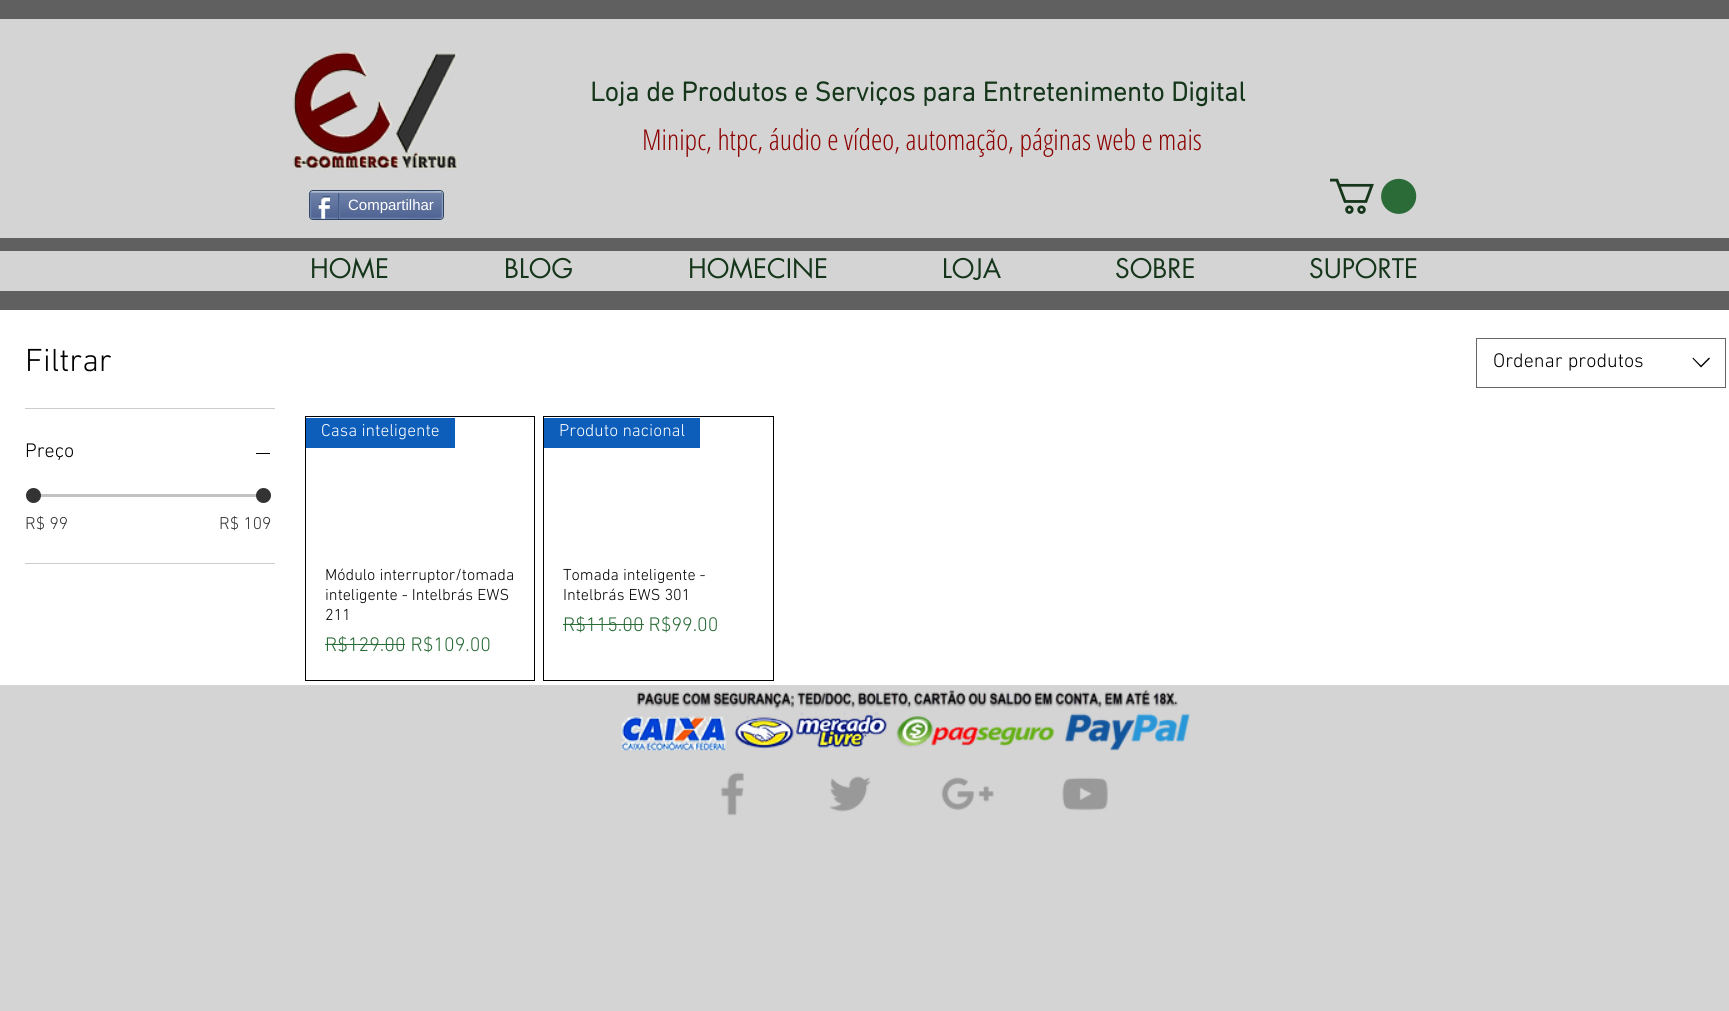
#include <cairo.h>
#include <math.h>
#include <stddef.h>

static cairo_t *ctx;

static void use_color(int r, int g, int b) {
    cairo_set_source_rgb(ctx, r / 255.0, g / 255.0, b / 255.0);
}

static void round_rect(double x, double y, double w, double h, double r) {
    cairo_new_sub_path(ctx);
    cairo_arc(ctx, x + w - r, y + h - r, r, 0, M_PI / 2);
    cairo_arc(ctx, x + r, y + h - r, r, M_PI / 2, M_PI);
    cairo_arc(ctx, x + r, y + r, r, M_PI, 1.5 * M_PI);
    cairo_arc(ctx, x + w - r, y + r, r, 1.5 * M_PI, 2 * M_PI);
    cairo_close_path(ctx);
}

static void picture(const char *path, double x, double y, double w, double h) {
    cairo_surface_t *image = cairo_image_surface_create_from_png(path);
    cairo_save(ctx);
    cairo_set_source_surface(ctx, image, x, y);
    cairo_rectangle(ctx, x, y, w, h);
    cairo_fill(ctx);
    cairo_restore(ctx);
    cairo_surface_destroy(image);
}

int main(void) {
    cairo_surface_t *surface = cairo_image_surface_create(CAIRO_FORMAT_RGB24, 1729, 1011);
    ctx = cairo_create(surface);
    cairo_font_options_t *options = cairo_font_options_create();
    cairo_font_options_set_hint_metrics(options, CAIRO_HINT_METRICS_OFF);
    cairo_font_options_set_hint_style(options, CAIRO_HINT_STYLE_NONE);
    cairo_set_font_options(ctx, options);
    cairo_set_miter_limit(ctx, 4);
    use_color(212, 212, 212);
    cairo_paint(ctx);
    use_color(96, 96, 96);
    cairo_rectangle(ctx, 0, 0, 1729, 19);
    cairo_fill(ctx);
    picture("img1.png", 293, 51, 165, 118);
    cairo_select_font_face(ctx, "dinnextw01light", CAIRO_FONT_SLANT_NORMAL, CAIRO_FONT_WEIGHT_BOLD);
    cairo_set_font_size(ctx, 27.5);
    use_color(21, 54, 27);
    cairo_move_to(ctx, 590, 101);
    cairo_show_text(ctx, "Loja de Produtos e Serviços para Entretenimento Digital");
    cairo_select_font_face(ctx, "Open Sans Condensed Light", CAIRO_FONT_SLANT_NORMAL, CAIRO_FONT_WEIGHT_NORMAL);
    cairo_set_font_size(ctx, 28.75);
    use_color(139, 0, 0);
    cairo_move_to(ctx, 642, 150);
    cairo_show_text(ctx, "Minipc, htpc, áudio e vídeo, automação, páginas web e mais");
    round_rect(309.5, 190.5, 134, 29, 3.5);
    use_color(45, 69, 101);
    cairo_set_line_width(ctx, 1);
    cairo_stroke(ctx);
    picture("img2.png", 310, 192, 133, 27);
    cairo_new_path(ctx);
    cairo_move_to(ctx, 311, 192.5);
    cairo_line_to(ctx, 312.5, 192);
    cairo_line_to(ctx, 397.5, 192);
    cairo_curve_to(ctx, 400.5, 192, 440, 191, 441.5, 192.5);
    use_color(154, 171, 198);
    cairo_set_line_width(ctx, 1.2);
    cairo_stroke(ctx);
    cairo_new_path(ctx);
    cairo_move_to(ctx, 441.5, 192.5);
    cairo_line_to(ctx, 442, 194);
    cairo_line_to(ctx, 442, 216);
    cairo_line_to(ctx, 441.5, 217.5);
    use_color(111, 131, 173);
    cairo_stroke(ctx);
    cairo_new_path(ctx);
    cairo_move_to(ctx, 441.5, 217.5);
    cairo_curve_to(ctx, 440, 219, 400.5, 218, 397.5, 218);
    cairo_line_to(ctx, 312.5, 218);
    cairo_line_to(ctx, 311, 217.5);
    use_color(97, 118, 163);
    cairo_stroke(ctx);
    cairo_new_path(ctx);
    cairo_move_to(ctx, 311, 217.5);
    cairo_line_to(ctx, 310.5, 216);
    cairo_line_to(ctx, 310.5, 194);
    cairo_line_to(ctx, 311, 192.5);
    use_color(111, 131, 173);
    cairo_stroke(ctx);
    picture("img3.png", 317, 196, 13, 23);
    use_color(66, 94, 133);
    cairo_rectangle(ctx, 338, 193, 1, 26);
    cairo_fill(ctx);
    cairo_select_font_face(ctx, "Liberation Sans", CAIRO_FONT_SLANT_NORMAL, CAIRO_FONT_WEIGHT_NORMAL);
    cairo_set_font_size(ctx, 15);
    use_color(255, 255, 255);
    cairo_move_to(ctx, 348, 210);
    cairo_show_text(ctx, "Compartilhar");
    use_color(97, 118, 163);
    cairo_rectangle(ctx, 339, 193, 1, 25);
    cairo_fill(ctx);
    picture("img4.png", 1330, 178, 87, 36);
    use_color(96, 96, 96);
    cairo_rectangle(ctx, 0, 238, 1729, 13);
    cairo_fill(ctx);
    cairo_select_font_face(ctx, "futura", CAIRO_FONT_SLANT_NORMAL, CAIRO_FONT_WEIGHT_NORMAL);
    cairo_set_font_size(ctx, 26.25);
    use_color(21, 54, 27);
    cairo_move_to(ctx, 310, 278);
    cairo_show_text(ctx, "HOME");
    cairo_move_to(ctx, 504, 278);
    cairo_show_text(ctx, "BLOG");
    cairo_move_to(ctx, 688, 278);
    cairo_show_text(ctx, "HOMECINE");
    cairo_move_to(ctx, 942, 278);
    cairo_show_text(ctx, "LOJA");
    cairo_move_to(ctx, 1115, 278);
    cairo_show_text(ctx, "SOBRE");
    cairo_move_to(ctx, 1309, 278);
    cairo_show_text(ctx, "SUPORTE");
    use_color(96, 96, 96);
    cairo_rectangle(ctx, 0, 291, 1729, 19);
    cairo_fill(ctx);
    use_color(255, 255, 255);
    cairo_rectangle(ctx, 0, 310, 1729, 375);
    cairo_fill(ctx);
    use_color(204, 204, 204);
    cairo_rectangle(ctx, 25, 408, 250, 1);
    cairo_fill(ctx);
    cairo_select_font_face(ctx, "dinnextw01light Light", CAIRO_FONT_SLANT_NORMAL, CAIRO_FONT_WEIGHT_NORMAL);
    cairo_set_font_size(ctx, 32.5);
    use_color(0, 0, 0);
    cairo_move_to(ctx, 25, 371);
    cairo_show_text(ctx, "Filtrar");
    use_color(204, 204, 204);
    cairo_rectangle(ctx, 25, 563, 250, 1);
    cairo_fill(ctx);
    cairo_set_font_size(ctx, 20);
    use_color(0, 0, 0);
    cairo_move_to(ctx, 25, 457);
    cairo_show_text(ctx, "Preço");
    cairo_rectangle(ctx, 256, 453, 14, 1);
    cairo_fill(ctx);
    use_color(194, 194, 194);
    cairo_rectangle(ctx, 33, 494, 230, 3);
    cairo_fill(ctx);
    use_color(51, 51, 51);
    cairo_arc(ctx, 33.5, 495.5, 7.5, 0, 2 * M_PI);
    cairo_fill(ctx);
    cairo_arc(ctx, 263.5, 495.5, 7.5, 0, 2 * M_PI);
    cairo_fill(ctx);
    cairo_set_font_size(ctx, 17.5);
    cairo_move_to(ctx, 25, 529);
    cairo_show_text(ctx, "R$ 99");
    cairo_move_to(ctx, 219, 529);
    cairo_show_text(ctx, "R$ 109");
    cairo_rectangle(ctx, 1476.5, 338.5, 249, 49);
    use_color(102, 102, 102);
    cairo_set_line_width(ctx, 1);
    cairo_stroke(ctx);
    cairo_set_font_size(ctx, 20);
    use_color(0, 0, 0);
    cairo_move_to(ctx, 1493, 367);
    cairo_show_text(ctx, "Ordenar produtos");
    cairo_set_fill_rule(ctx, CAIRO_FILL_RULE_EVEN_ODD);
    cairo_new_path(ctx);
    cairo_move_to(ctx, 1709, 357.5);
    cairo_line_to(ctx, 1710, 358.5);
    cairo_line_to(ctx, 1701, 367.5);
    cairo_line_to(ctx, 1692.5, 358.5);
    cairo_line_to(ctx, 1693, 357.5);
    cairo_line_to(ctx, 1701, 365.5);
    cairo_close_path(ctx);
    cairo_fill(ctx);
    cairo_rectangle(ctx, 305.5, 416.5, 229, 264);
    cairo_stroke(ctx);
    use_color(13, 94, 186);
    cairo_rectangle(ctx, 306, 418, 149, 30);
    cairo_fill(ctx);
    cairo_set_font_size(ctx, 17.5);
    use_color(255, 255, 255);
    cairo_move_to(ctx, 321, 436);
    cairo_show_text(ctx, "Casa inteligente");
    cairo_set_font_size(ctx, 16.25);
    use_color(0, 0, 0);
    cairo_move_to(ctx, 325, 580);
    cairo_show_text(ctx, "Módulo interruptor/tomada");
    cairo_move_to(ctx, 325, 600);
    cairo_show_text(ctx, "inteligente - Intelbrás EWS");
    cairo_move_to(ctx, 325, 620);
    cairo_show_text(ctx, "211");
    cairo_set_font_size(ctx, 20);
    use_color(42, 107, 55);
    cairo_move_to(ctx, 325, 651);
    cairo_show_text(ctx, "R$129.00 R$109.00");
    cairo_rectangle(ctx, 325, 644, 80, 1);
    cairo_fill(ctx);
    cairo_rectangle(ctx, 543.5, 416.5, 230, 264);
    use_color(0, 0, 0);
    cairo_stroke(ctx);
    use_color(13, 94, 186);
    cairo_rectangle(ctx, 544, 418, 156, 30);
    cairo_fill(ctx);
    cairo_set_font_size(ctx, 17.5);
    use_color(255, 255, 255);
    cairo_move_to(ctx, 559, 436);
    cairo_show_text(ctx, "Produto nacional");
    cairo_set_font_size(ctx, 16.25);
    use_color(0, 0, 0);
    cairo_move_to(ctx, 563, 580);
    cairo_show_text(ctx, "Tomada inteligente -");
    cairo_move_to(ctx, 563, 600);
    cairo_show_text(ctx, "Intelbrás EWS 301");
    cairo_set_font_size(ctx, 20);
    use_color(42, 107, 55);
    cairo_move_to(ctx, 563, 631);
    cairo_show_text(ctx, "R$115.00 R$99.00");
    cairo_rectangle(ctx, 563, 624, 81, 1);
    cairo_fill(ctx);
    picture("img5.png", 621, 690, 570, 61);
    picture("img6.png", 721, 772, 23, 44);
    picture("img7.png", 829, 776, 42, 36);
    picture("img8.png", 941, 777, 53, 34);
    picture("img9.png", 1062, 777, 46, 34);
    cairo_surface_write_to_png(surface, "result.png");
    cairo_font_options_destroy(options);
    cairo_destroy(ctx);
    cairo_surface_destroy(surface);
    return 0;
}
